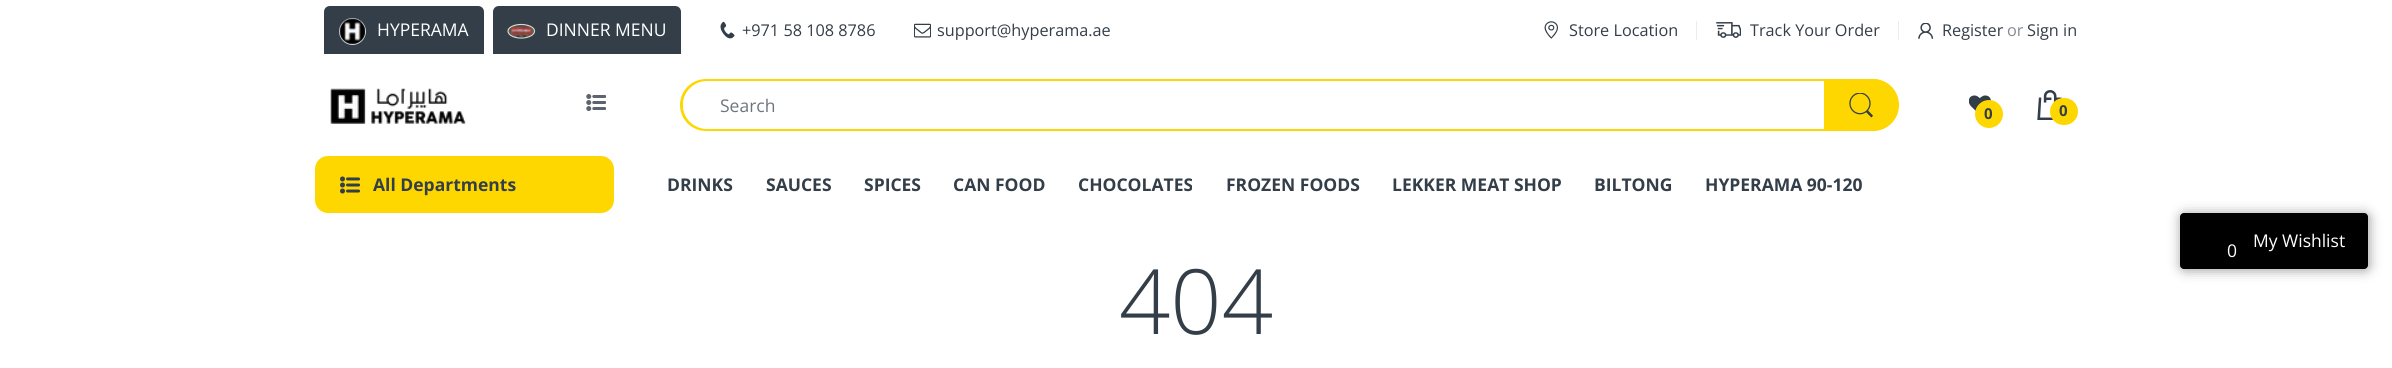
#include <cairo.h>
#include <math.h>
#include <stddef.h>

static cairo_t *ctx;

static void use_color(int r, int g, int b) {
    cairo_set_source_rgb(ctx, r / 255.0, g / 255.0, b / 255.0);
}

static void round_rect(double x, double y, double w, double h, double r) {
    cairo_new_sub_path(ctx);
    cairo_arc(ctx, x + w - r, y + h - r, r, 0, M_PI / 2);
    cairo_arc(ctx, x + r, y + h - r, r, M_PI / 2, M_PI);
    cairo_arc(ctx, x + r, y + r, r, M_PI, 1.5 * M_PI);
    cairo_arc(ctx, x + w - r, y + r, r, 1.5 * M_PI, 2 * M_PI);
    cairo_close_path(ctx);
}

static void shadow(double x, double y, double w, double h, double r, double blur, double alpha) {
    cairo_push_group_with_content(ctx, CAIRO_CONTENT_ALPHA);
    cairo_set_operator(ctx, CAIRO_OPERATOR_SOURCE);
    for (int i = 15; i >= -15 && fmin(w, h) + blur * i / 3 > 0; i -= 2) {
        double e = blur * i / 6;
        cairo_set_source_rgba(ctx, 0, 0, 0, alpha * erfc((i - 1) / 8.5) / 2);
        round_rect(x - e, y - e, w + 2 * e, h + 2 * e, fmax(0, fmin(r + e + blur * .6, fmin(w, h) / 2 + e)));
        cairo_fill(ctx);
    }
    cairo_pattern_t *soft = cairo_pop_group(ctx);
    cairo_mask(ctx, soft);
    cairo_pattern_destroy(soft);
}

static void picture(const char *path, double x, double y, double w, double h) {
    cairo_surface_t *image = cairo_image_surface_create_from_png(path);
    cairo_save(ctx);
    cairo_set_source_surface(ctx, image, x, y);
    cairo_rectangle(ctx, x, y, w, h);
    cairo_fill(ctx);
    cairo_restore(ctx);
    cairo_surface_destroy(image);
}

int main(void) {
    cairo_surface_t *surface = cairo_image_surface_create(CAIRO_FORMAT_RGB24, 2392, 368);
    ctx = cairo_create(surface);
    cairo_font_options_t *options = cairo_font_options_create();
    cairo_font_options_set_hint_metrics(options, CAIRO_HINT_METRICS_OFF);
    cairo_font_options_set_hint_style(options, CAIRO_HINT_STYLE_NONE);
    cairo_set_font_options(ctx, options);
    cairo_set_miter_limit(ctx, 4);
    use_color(255, 255, 255);
    cairo_paint(ctx);
    use_color(51, 62, 72);
    cairo_new_path(ctx);
    cairo_move_to(ctx, 330, 6);
    cairo_line_to(ctx, 478, 6);
    cairo_curve_to(ctx, 481.5, 6, 484, 8.5, 484, 12);
    cairo_line_to(ctx, 484, 54);
    cairo_line_to(ctx, 324, 54);
    cairo_line_to(ctx, 324, 12);
    cairo_curve_to(ctx, 324, 8.5, 326.5, 6, 330, 6);
    cairo_close_path(ctx);
    cairo_fill(ctx);
    cairo_arc(ctx, 352.5, 31.5, 13, 0, 2 * M_PI);
    use_color(221, 221, 221);
    cairo_set_line_width(ctx, 1);
    cairo_stroke(ctx);
    picture("img1.png", 339, 18, 27, 27);
    cairo_select_font_face(ctx, "Open Sans", CAIRO_FONT_SLANT_NORMAL, CAIRO_FONT_WEIGHT_NORMAL);
    cairo_set_font_size(ctx, 17.5);
    use_color(255, 255, 255);
    cairo_move_to(ctx, 377, 36);
    cairo_show_text(ctx, "HYPERAMA");
    use_color(51, 62, 72);
    cairo_new_path(ctx);
    cairo_move_to(ctx, 499, 6);
    cairo_line_to(ctx, 675, 6);
    cairo_curve_to(ctx, 678.5, 6, 681, 8.5, 681, 12);
    cairo_line_to(ctx, 681, 54);
    cairo_line_to(ctx, 493, 54);
    cairo_line_to(ctx, 493, 12);
    cairo_curve_to(ctx, 493, 8.5, 495.5, 6, 499, 6);
    cairo_close_path(ctx);
    cairo_fill(ctx);
    cairo_new_path(ctx);
    cairo_move_to(ctx, 521, 24.5);
    cairo_curve_to(ctx, 528.5, 24.5, 534.5, 27.5, 534.5, 31);
    cairo_curve_to(ctx, 534.5, 35, 528.5, 38, 521, 38);
    cairo_curve_to(ctx, 514, 38, 508, 35, 508, 31);
    cairo_curve_to(ctx, 508, 27.5, 514, 24.5, 521, 24.5);
    cairo_close_path(ctx);
    use_color(221, 221, 221);
    cairo_set_line_width(ctx, 1.2);
    cairo_stroke(ctx);
    picture("img2.png", 508, 24, 26, 14);
    use_color(255, 255, 255);
    cairo_move_to(ctx, 546, 36);
    cairo_show_text(ctx, "DINNER MENU");
    picture("img3.png", 720, 21, 15, 18);
    cairo_set_font_size(ctx, 16.25);
    use_color(51, 62, 72);
    cairo_move_to(ctx, 742, 36);
    cairo_show_text(ctx, "+971 58 108 8786");
    picture("img4.png", 914, 23, 17, 15);
    cairo_move_to(ctx, 937, 36);
    cairo_show_text(ctx, "support@hyperama.ae");
    picture("img5.png", 1544, 21, 14, 18);
    cairo_move_to(ctx, 1569, 36);
    cairo_show_text(ctx, "Store Location");
    use_color(235, 236, 237);
    cairo_rectangle(ctx, 1696, 21, 1, 19);
    cairo_fill(ctx);
    picture("img6.png", 1716, 22, 25, 16);
    use_color(51, 62, 72);
    cairo_move_to(ctx, 1750, 36);
    cairo_show_text(ctx, "Track Your Order");
    use_color(235, 236, 237);
    cairo_rectangle(ctx, 1898, 21, 1, 19);
    cairo_fill(ctx);
    picture("img7.png", 1918, 23, 16, 16);
    use_color(51, 62, 72);
    cairo_move_to(ctx, 1942, 36);
    cairo_show_text(ctx, "Register");
    use_color(133, 139, 145);
    cairo_move_to(ctx, 2007, 36);
    cairo_show_text(ctx, "or");
    use_color(51, 62, 72);
    cairo_move_to(ctx, 2027, 36);
    cairo_show_text(ctx, "Sign in");
    picture("img8.png", 330, 88, 136, 36);
    picture("img9.png", 586, 94, 20, 17);
    round_rect(681.5, 80.5, 1215, 49, 24.5);
    use_color(254, 215, 0);
    cairo_set_line_width(ctx, 3);
    cairo_stroke(ctx);
    use_color(255, 255, 255);
    round_rect(683, 81, 1212, 48, 24);
    cairo_fill(ctx);
    cairo_set_font_size(ctx, 17.5);
    use_color(108, 117, 125);
    cairo_move_to(ctx, 720, 112);
    cairo_show_text(ctx, "Search");
    use_color(254, 215, 0);
    cairo_new_path(ctx);
    cairo_move_to(ctx, 1824, 79);
    cairo_line_to(ctx, 1873, 79);
    cairo_curve_to(ctx, 1887.5, 79, 1899, 90.5, 1899, 105);
    cairo_curve_to(ctx, 1899, 119.5, 1887.5, 131, 1873, 131);
    cairo_line_to(ctx, 1824, 131);
    cairo_close_path(ctx);
    cairo_fill(ctx);
    picture("img10.png", 1849, 93, 24, 25);
    picture("img11.png", 1969, 95, 22, 16);
    cairo_arc(ctx, 1989, 114, 14, 0, 2 * M_PI);
    cairo_fill(ctx);
    cairo_select_font_face(ctx, "Open Sans", CAIRO_FONT_SLANT_NORMAL, CAIRO_FONT_WEIGHT_BOLD);
    cairo_set_font_size(ctx, 15);
    use_color(51, 62, 72);
    cairo_move_to(ctx, 1984, 119);
    cairo_show_text(ctx, "0");
    picture("img12.png", 2037, 90, 25, 30);
    use_color(254, 215, 0);
    round_rect(2050, 98, 28, 27, 13.5);
    cairo_fill(ctx);
    use_color(51, 62, 72);
    cairo_move_to(ctx, 2059, 116);
    cairo_show_text(ctx, "0");
    use_color(254, 215, 0);
    round_rect(315, 156, 299, 57, 13);
    cairo_fill(ctx);
    picture("img13.png", 340, 176, 20, 18);
    cairo_set_font_size(ctx, 17.5);
    use_color(51, 62, 72);
    cairo_move_to(ctx, 373, 191);
    cairo_show_text(ctx, "All Departments");
    cairo_move_to(ctx, 667, 191);
    cairo_show_text(ctx, "DRINKS");
    cairo_move_to(ctx, 766, 191);
    cairo_show_text(ctx, "SAUCES");
    cairo_move_to(ctx, 864, 191);
    cairo_show_text(ctx, "SPICES");
    cairo_move_to(ctx, 953, 191);
    cairo_show_text(ctx, "CAN FOOD");
    cairo_move_to(ctx, 1078, 191);
    cairo_show_text(ctx, "CHOCOLATES");
    cairo_move_to(ctx, 1226, 191);
    cairo_show_text(ctx, "FROZEN FOODS");
    cairo_move_to(ctx, 1392, 191);
    cairo_show_text(ctx, "LEKKER MEAT SHOP");
    cairo_move_to(ctx, 1594, 191);
    cairo_show_text(ctx, "BILTONG");
    cairo_move_to(ctx, 1705, 191);
    cairo_show_text(ctx, "HYPERAMA 90-120");
    cairo_select_font_face(ctx, "Open Sans Light", CAIRO_FONT_SLANT_NORMAL, CAIRO_FONT_WEIGHT_NORMAL);
    cairo_set_font_size(ctx, 90);
    cairo_move_to(ctx, 1119, 334);
    cairo_show_text(ctx, "404");
    use_color(153, 153, 153);
    shadow(2181, 214, 188, 56, 4, 6, 1);
    use_color(0, 0, 0);
    round_rect(2180, 213, 188, 56, 4);
    cairo_fill(ctx);
    cairo_select_font_face(ctx, "Open Sans", CAIRO_FONT_SLANT_NORMAL, CAIRO_FONT_WEIGHT_NORMAL);
    cairo_set_font_size(ctx, 17.5);
    use_color(255, 255, 255);
    cairo_move_to(ctx, 2227, 257);
    cairo_show_text(ctx, "0");
    cairo_move_to(ctx, 2253, 247);
    cairo_show_text(ctx, "My Wishlist");
    cairo_surface_write_to_png(surface, "result.png");
    cairo_font_options_destroy(options);
    cairo_destroy(ctx);
    cairo_surface_destroy(surface);
    return 0;
}
